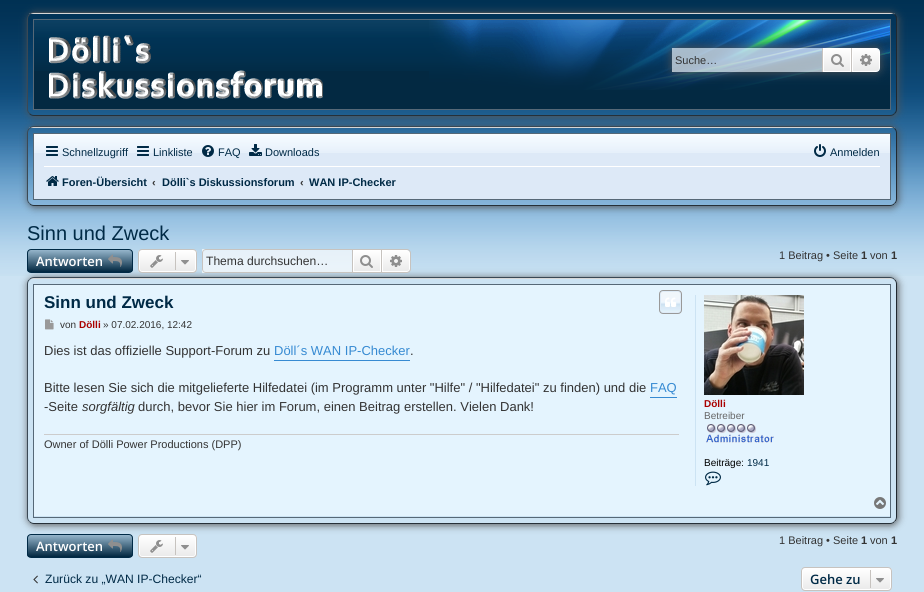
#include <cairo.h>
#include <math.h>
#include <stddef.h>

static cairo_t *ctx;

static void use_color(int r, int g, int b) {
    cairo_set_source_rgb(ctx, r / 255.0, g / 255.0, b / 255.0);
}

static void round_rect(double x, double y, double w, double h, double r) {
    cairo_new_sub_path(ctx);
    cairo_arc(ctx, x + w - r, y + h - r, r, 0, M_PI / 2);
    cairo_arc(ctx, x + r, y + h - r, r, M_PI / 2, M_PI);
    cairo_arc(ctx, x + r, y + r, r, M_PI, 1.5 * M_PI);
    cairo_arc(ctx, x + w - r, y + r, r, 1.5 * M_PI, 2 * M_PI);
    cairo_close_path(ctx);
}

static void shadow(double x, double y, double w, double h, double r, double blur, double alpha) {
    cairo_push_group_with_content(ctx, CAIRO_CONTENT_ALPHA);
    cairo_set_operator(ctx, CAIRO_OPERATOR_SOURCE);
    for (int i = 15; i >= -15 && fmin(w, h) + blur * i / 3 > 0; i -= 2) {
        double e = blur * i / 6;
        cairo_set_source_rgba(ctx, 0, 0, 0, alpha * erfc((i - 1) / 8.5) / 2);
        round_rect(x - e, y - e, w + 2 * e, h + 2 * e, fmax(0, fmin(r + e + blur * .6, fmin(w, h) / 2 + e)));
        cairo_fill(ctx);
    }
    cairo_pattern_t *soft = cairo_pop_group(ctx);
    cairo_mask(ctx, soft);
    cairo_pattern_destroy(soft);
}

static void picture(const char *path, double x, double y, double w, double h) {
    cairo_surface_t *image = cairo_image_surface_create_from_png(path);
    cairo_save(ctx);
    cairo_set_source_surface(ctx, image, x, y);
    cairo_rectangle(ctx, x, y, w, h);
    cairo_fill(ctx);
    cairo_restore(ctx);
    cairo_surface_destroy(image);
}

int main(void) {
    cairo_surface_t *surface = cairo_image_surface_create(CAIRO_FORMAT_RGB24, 924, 592);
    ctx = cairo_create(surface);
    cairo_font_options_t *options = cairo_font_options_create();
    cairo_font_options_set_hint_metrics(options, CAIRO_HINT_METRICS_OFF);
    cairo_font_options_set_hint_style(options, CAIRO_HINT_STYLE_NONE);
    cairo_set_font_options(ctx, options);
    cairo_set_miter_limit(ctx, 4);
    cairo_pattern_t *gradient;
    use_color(204, 227, 243);
    cairo_paint(ctx);
    picture("img1.png", 0, 0, 924, 276);
    cairo_save(ctx);
    cairo_set_fill_rule(ctx, CAIRO_FILL_RULE_EVEN_ODD);
    cairo_new_path(ctx);
    cairo_move_to(ctx, 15, 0);
    cairo_line_to(ctx, 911, 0);
    cairo_line_to(ctx, 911, 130);
    cairo_line_to(ctx, 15, 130);
    cairo_close_path(ctx);
    cairo_move_to(ctx, 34, 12);
    cairo_line_to(ctx, 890, 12);
    cairo_curve_to(ctx, 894, 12, 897, 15, 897, 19);
    cairo_line_to(ctx, 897, 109);
    cairo_curve_to(ctx, 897, 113, 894, 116, 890, 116);
    cairo_line_to(ctx, 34, 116);
    cairo_curve_to(ctx, 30, 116, 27, 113, 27, 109);
    cairo_line_to(ctx, 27, 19);
    cairo_curve_to(ctx, 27, 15, 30, 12, 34, 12);
    cairo_close_path(ctx);
    cairo_clip(ctx);
    use_color(85, 85, 85);
    shadow(28, 13, 870, 104, 7, 4, 1);
    cairo_restore(ctx);
    picture("img2.png", 29, 13, 866, 1);
    cairo_new_path(ctx);
    cairo_move_to(ctx, 29.5, 14.5);
    cairo_curve_to(ctx, 30.5, 13, 32.5, 12.5, 34, 12.5);
    cairo_line_to(ctx, 890, 12.5);
    cairo_curve_to(ctx, 891.5, 12.5, 893.5, 13, 894.5, 14.5);
    use_color(57, 72, 84);
    cairo_set_line_width(ctx, 1);
    cairo_stroke(ctx);
    cairo_new_path(ctx);
    cairo_move_to(ctx, 894.5, 14.5);
    cairo_curve_to(ctx, 896, 15.5, 896.5, 17.5, 896.5, 19);
    cairo_line_to(ctx, 896.5, 109);
    cairo_curve_to(ctx, 896.5, 110.5, 896, 112.5, 894.5, 113.5);
    use_color(33, 41, 48);
    cairo_stroke(ctx);
    cairo_new_path(ctx);
    cairo_move_to(ctx, 894.5, 113.5);
    cairo_curve_to(ctx, 893.5, 115, 891.5, 115.5, 890, 115.5);
    cairo_line_to(ctx, 34, 115.5);
    cairo_curve_to(ctx, 32.5, 115.5, 30.5, 115, 29.5, 113.5);
    use_color(38, 48, 56);
    cairo_stroke(ctx);
    cairo_new_path(ctx);
    cairo_move_to(ctx, 29.5, 113.5);
    cairo_curve_to(ctx, 28, 112.5, 27.5, 110.5, 27.5, 109);
    cairo_line_to(ctx, 27.5, 19);
    cairo_curve_to(ctx, 27.5, 17.5, 28, 15.5, 29.5, 14.5);
    use_color(58, 73, 85);
    cairo_stroke(ctx);
    cairo_rectangle(ctx, 33.5, 19.5, 857, 90);
    use_color(86, 104, 119);
    cairo_stroke(ctx);
    use_color(3, 41, 66);
    cairo_rectangle(ctx, 34, 71, 856, 38);
    cairo_fill(ctx);
    picture("img3.png", 34, 20, 395, 51);
    picture("img4.png", 429, 20, 461, 70);
    picture("img5.png", 49, 35, 274, 64);
    cairo_save(ctx);
    cairo_set_fill_rule(ctx, CAIRO_FILL_RULE_EVEN_ODD);
    cairo_new_path(ctx);
    cairo_move_to(ctx, 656, 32);
    cairo_line_to(ctx, 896, 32);
    cairo_line_to(ctx, 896, 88);
    cairo_line_to(ctx, 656, 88);
    cairo_close_path(ctx);
    cairo_move_to(ctx, 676, 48);
    cairo_line_to(ctx, 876, 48);
    cairo_curve_to(ctx, 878, 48, 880, 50, 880, 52);
    cairo_line_to(ctx, 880, 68);
    cairo_curve_to(ctx, 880, 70, 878, 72, 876, 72);
    cairo_line_to(ctx, 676, 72);
    cairo_curve_to(ctx, 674, 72, 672, 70, 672, 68);
    cairo_line_to(ctx, 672, 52);
    cairo_curve_to(ctx, 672, 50, 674, 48, 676, 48);
    cairo_close_path(ctx);
    cairo_clip(ctx);
    use_color(85, 85, 85);
    shadow(672, 48, 208, 24, 4, 5, 1);
    cairo_restore(ctx);
    cairo_set_source_rgba(ctx, 1, 1, 1, 0.65);
    cairo_rectangle(ctx, 672, 48, 150, 24);
    cairo_fill(ctx);
    cairo_select_font_face(ctx, "Liberation Sans", CAIRO_FONT_SLANT_NORMAL, CAIRO_FONT_WEIGHT_NORMAL);
    cairo_set_font_size(ctx, 11);
    use_color(51, 51, 51);
    cairo_move_to(ctx, 675, 64);
    cairo_show_text(ctx, "Suche…");
    gradient = cairo_pattern_create_linear(837, 48, 837, 72);
    cairo_pattern_add_color_stop_rgba(gradient, 0, 1, 1, 1, 1);
    cairo_pattern_add_color_stop_rgba(gradient, 1, 0.914, 0.914, 0.914, 1);
    cairo_set_source(ctx, gradient);
    cairo_pattern_destroy(gradient);
    cairo_rectangle(ctx, 824, 49, 26, 22);
    cairo_fill(ctx);
    cairo_rectangle(ctx, 823.5, 48.5, 27, 23);
    use_color(255, 255, 255);
    cairo_stroke(ctx);
    use_color(199, 195, 191);
    cairo_rectangle(ctx, 851, 48, 1, 24);
    cairo_fill(ctx);
    cairo_rectangle(ctx, 822, 48, 1, 24);
    cairo_fill(ctx);
    picture("img6.png", 831, 54, 13, 13);
    gradient = cairo_pattern_create_linear(866, 48, 866, 72);
    cairo_pattern_add_color_stop_rgba(gradient, 0, 1, 1, 1, 1);
    cairo_pattern_add_color_stop_rgba(gradient, 1, 0.914, 0.914, 0.914, 1);
    cairo_set_source(ctx, gradient);
    cairo_pattern_destroy(gradient);
    cairo_new_path(ctx);
    cairo_move_to(ctx, 852.5, 48.5);
    cairo_line_to(ctx, 876, 48.5);
    cairo_curve_to(ctx, 878, 48.5, 879.5, 50, 879.5, 52);
    cairo_line_to(ctx, 879.5, 68);
    cairo_curve_to(ctx, 879.5, 70, 878, 71.5, 876, 71.5);
    cairo_line_to(ctx, 852.5, 71.5);
    cairo_close_path(ctx);
    cairo_fill_preserve(ctx);
    use_color(255, 255, 255);
    cairo_stroke(ctx);
    picture("img7.png", 860, 54, 12, 12);
    cairo_save(ctx);
    cairo_set_fill_rule(ctx, CAIRO_FILL_RULE_EVEN_ODD);
    cairo_new_path(ctx);
    cairo_move_to(ctx, 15, 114);
    cairo_line_to(ctx, 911, 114);
    cairo_line_to(ctx, 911, 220);
    cairo_line_to(ctx, 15, 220);
    cairo_close_path(ctx);
    cairo_move_to(ctx, 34, 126);
    cairo_line_to(ctx, 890, 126);
    cairo_curve_to(ctx, 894, 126, 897, 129, 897, 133);
    cairo_line_to(ctx, 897, 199);
    cairo_curve_to(ctx, 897, 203, 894, 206, 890, 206);
    cairo_line_to(ctx, 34, 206);
    cairo_curve_to(ctx, 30, 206, 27, 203, 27, 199);
    cairo_line_to(ctx, 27, 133);
    cairo_curve_to(ctx, 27, 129, 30, 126, 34, 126);
    cairo_close_path(ctx);
    cairo_clip(ctx);
    use_color(85, 85, 85);
    shadow(28, 127, 870, 80, 7, 4, 1);
    cairo_restore(ctx);
    picture("img8.png", 29, 127, 866, 1);
    cairo_new_path(ctx);
    cairo_move_to(ctx, 29.5, 128.5);
    cairo_curve_to(ctx, 30.5, 127, 32.5, 126.5, 34, 126.5);
    cairo_line_to(ctx, 890, 126.5);
    cairo_curve_to(ctx, 891.5, 126.5, 893.5, 127, 894.5, 128.5);
    use_color(57, 72, 84);
    cairo_stroke(ctx);
    cairo_new_path(ctx);
    cairo_move_to(ctx, 894.5, 128.5);
    cairo_curve_to(ctx, 896, 129.5, 896.5, 131.5, 896.5, 133);
    cairo_line_to(ctx, 896.5, 199);
    cairo_curve_to(ctx, 896.5, 200.5, 896, 202.5, 894.5, 203.5);
    use_color(33, 41, 48);
    cairo_stroke(ctx);
    cairo_new_path(ctx);
    cairo_move_to(ctx, 894.5, 203.5);
    cairo_curve_to(ctx, 893.5, 205, 891.5, 205.5, 890, 205.5);
    cairo_line_to(ctx, 34, 205.5);
    cairo_curve_to(ctx, 32.5, 205.5, 30.5, 205, 29.5, 203.5);
    use_color(38, 48, 56);
    cairo_stroke(ctx);
    cairo_new_path(ctx);
    cairo_move_to(ctx, 29.5, 203.5);
    cairo_curve_to(ctx, 28, 202.5, 27.5, 200.5, 27.5, 199);
    cairo_line_to(ctx, 27.5, 133);
    cairo_curve_to(ctx, 27.5, 131.5, 28, 129.5, 29.5, 128.5);
    use_color(58, 73, 85);
    cairo_stroke(ctx);
    cairo_rectangle(ctx, 33.5, 133.5, 857, 66);
    use_color(86, 104, 119);
    cairo_stroke(ctx);
    use_color(221, 233, 247);
    cairo_rectangle(ctx, 34, 153, 856, 46);
    cairo_fill(ctx);
    picture("img9.png", 34, 134, 856, 19);
    picture("img10.png", 46, 146, 12, 10);
    use_color(0, 42, 70);
    cairo_move_to(ctx, 62, 156);
    cairo_show_text(ctx, "Schnellzugriff");
    picture("img10.png", 137, 146, 12, 10);
    cairo_move_to(ctx, 153, 156);
    cairo_show_text(ctx, "Linkliste");
    picture("img11.png", 202, 145, 12, 12);
    cairo_move_to(ctx, 218, 156);
    cairo_show_text(ctx, "FAQ");
    picture("img12.png", 249, 144, 13, 12);
    cairo_move_to(ctx, 265, 156);
    cairo_show_text(ctx, "Downloads");
    picture("img13.png", 814, 144, 12, 13);
    cairo_move_to(ctx, 830, 156);
    cairo_show_text(ctx, "Anmelden");
    use_color(255, 255, 255);
    cairo_rectangle(ctx, 44, 166, 836, 1);
    cairo_fill(ctx);
    picture("img14.png", 46, 176, 13, 10);
    cairo_select_font_face(ctx, "Liberation Sans", CAIRO_FONT_SLANT_NORMAL, CAIRO_FONT_WEIGHT_BOLD);
    use_color(0, 42, 70);
    cairo_move_to(ctx, 62, 186);
    cairo_show_text(ctx, "Foren-Übersicht");
    use_color(51, 51, 51);
    cairo_move_to(ctx, 152, 186);
    cairo_show_text(ctx, "‹");
    use_color(0, 42, 70);
    cairo_move_to(ctx, 162, 186);
    cairo_show_text(ctx, "Dölli`s Diskussionsforum");
    use_color(51, 51, 51);
    cairo_move_to(ctx, 300, 186);
    cairo_show_text(ctx, "‹");
    use_color(0, 42, 70);
    cairo_move_to(ctx, 309, 186);
    cairo_show_text(ctx, "WAN IP-Checker");
    cairo_select_font_face(ctx, "Liberation Sans", CAIRO_FONT_SLANT_NORMAL, CAIRO_FONT_WEIGHT_NORMAL);
    cairo_set_font_size(ctx, 20);
    cairo_move_to(ctx, 27, 240);
    cairo_show_text(ctx, "Sinn und Zweck");
    cairo_save(ctx);
    cairo_set_fill_rule(ctx, CAIRO_FILL_RULE_EVEN_ODD);
    cairo_new_path(ctx);
    cairo_move_to(ctx, 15, 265);
    cairo_line_to(ctx, 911, 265);
    cairo_line_to(ctx, 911, 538);
    cairo_line_to(ctx, 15, 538);
    cairo_close_path(ctx);
    cairo_move_to(ctx, 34, 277);
    cairo_line_to(ctx, 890, 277);
    cairo_curve_to(ctx, 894, 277, 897, 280, 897, 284);
    cairo_line_to(ctx, 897, 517);
    cairo_curve_to(ctx, 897, 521, 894, 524, 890, 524);
    cairo_line_to(ctx, 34, 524);
    cairo_curve_to(ctx, 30, 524, 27, 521, 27, 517);
    cairo_line_to(ctx, 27, 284);
    cairo_curve_to(ctx, 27, 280, 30, 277, 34, 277);
    cairo_close_path(ctx);
    cairo_clip(ctx);
    use_color(85, 85, 85);
    shadow(28, 278, 870, 247, 7, 4, 1);
    cairo_restore(ctx);
    cairo_save(ctx);
    round_rect(27, 249, 106, 24, 4);
    cairo_clip(ctx);
    gradient = cairo_pattern_create_linear(80, 250, 80, 272);
    cairo_pattern_add_color_stop_rgba(gradient, 0, 0.584, 0.71, 0.796, 1);
    cairo_pattern_add_color_stop_rgba(gradient, 1, 0, 0.149, 0.247, 1);
    cairo_set_source(ctx, gradient);
    cairo_pattern_destroy(gradient);
    cairo_rectangle(ctx, 27, 250, 106, 22);
    cairo_fill(ctx);
    cairo_restore(ctx);
    round_rect(27.5, 249.5, 105, 23, 3.5);
    cairo_stroke(ctx);
    cairo_select_font_face(ctx, "Open Sans SemiBold", CAIRO_FONT_SLANT_NORMAL, CAIRO_FONT_WEIGHT_NORMAL);
    cairo_set_font_size(ctx, 13);
    use_color(255, 255, 255);
    cairo_move_to(ctx, 36, 266);
    cairo_show_text(ctx, "Antworten");
    picture("img15.png", 108, 254, 14, 13);
    cairo_save(ctx);
    round_rect(138, 249, 59, 24, 4);
    cairo_clip(ctx);
    gradient = cairo_pattern_create_linear(168, 250, 168, 272);
    cairo_pattern_add_color_stop_rgba(gradient, 0, 1, 1, 1, 1);
    cairo_pattern_add_color_stop_rgba(gradient, 1, 0.914, 0.914, 0.914, 1);
    cairo_set_source(ctx, gradient);
    cairo_pattern_destroy(gradient);
    cairo_rectangle(ctx, 138, 250, 59, 22);
    cairo_fill(ctx);
    cairo_restore(ctx);
    round_rect(139.5, 250.5, 56, 21, 2.5);
    cairo_stroke(ctx);
    round_rect(138.5, 249.5, 58, 23, 3.5);
    use_color(199, 195, 191);
    cairo_stroke(ctx);
    picture("img16.png", 150, 255, 13, 13);
    cairo_rectangle(ctx, 175, 252, 1, 18);
    cairo_fill(ctx);
    picture("img17.png", 181, 260, 8, 5);
    cairo_set_source_rgba(ctx, 1, 1, 1, 0.65);
    cairo_rectangle(ctx, 202, 249, 150, 24);
    cairo_fill(ctx);
    use_color(199, 195, 191);
    cairo_set_fill_rule(ctx, CAIRO_FILL_RULE_EVEN_ODD);
    cairo_new_path(ctx);
    cairo_move_to(ctx, 206, 249);
    cairo_line_to(ctx, 352, 249);
    cairo_line_to(ctx, 352, 273);
    cairo_line_to(ctx, 206, 273);
    cairo_curve_to(ctx, 204, 273, 202, 271, 202, 269);
    cairo_line_to(ctx, 202, 253);
    cairo_curve_to(ctx, 202, 251, 204, 249, 206, 249);
    cairo_close_path(ctx);
    cairo_move_to(ctx, 206, 250);
    cairo_line_to(ctx, 352, 250);
    cairo_line_to(ctx, 352, 272);
    cairo_line_to(ctx, 206, 272);
    cairo_curve_to(ctx, 204, 272, 203, 271, 203, 269);
    cairo_line_to(ctx, 203, 253);
    cairo_curve_to(ctx, 203, 251, 204, 250, 206, 250);
    cairo_close_path(ctx);
    cairo_fill(ctx);
    cairo_select_font_face(ctx, "Liberation Sans", CAIRO_FONT_SLANT_NORMAL, CAIRO_FONT_WEIGHT_NORMAL);
    cairo_set_font_size(ctx, 12.1);
    use_color(51, 51, 51);
    cairo_move_to(ctx, 206, 265);
    cairo_show_text(ctx, "Thema durchsuchen…");
    gradient = cairo_pattern_create_linear(367, 250, 367, 272);
    cairo_pattern_add_color_stop_rgba(gradient, 0, 1, 1, 1, 1);
    cairo_pattern_add_color_stop_rgba(gradient, 1, 0.914, 0.914, 0.914, 1);
    cairo_set_source(ctx, gradient);
    cairo_pattern_destroy(gradient);
    cairo_rectangle(ctx, 354, 251, 26, 20);
    cairo_fill(ctx);
    cairo_rectangle(ctx, 353.5, 250.5, 27, 21);
    use_color(255, 255, 255);
    cairo_stroke(ctx);
    cairo_rectangle(ctx, 352.5, 249.5, 29, 23);
    use_color(199, 195, 191);
    cairo_stroke(ctx);
    picture("img18.png", 360, 255, 13, 13);
    gradient = cairo_pattern_create_linear(396, 250, 396, 272);
    cairo_pattern_add_color_stop_rgba(gradient, 0, 1, 1, 1, 1);
    cairo_pattern_add_color_stop_rgba(gradient, 1, 0.914, 0.914, 0.914, 1);
    cairo_set_source(ctx, gradient);
    cairo_pattern_destroy(gradient);
    cairo_new_path(ctx);
    cairo_move_to(ctx, 382.5, 250.5);
    cairo_line_to(ctx, 407, 250.5);
    cairo_curve_to(ctx, 408.5, 250.5, 409.5, 251.5, 409.5, 253);
    cairo_line_to(ctx, 409.5, 269);
    cairo_curve_to(ctx, 409.5, 270.5, 408.5, 271.5, 407, 271.5);
    cairo_line_to(ctx, 382.5, 271.5);
    cairo_close_path(ctx);
    cairo_fill_preserve(ctx);
    use_color(255, 255, 255);
    cairo_stroke(ctx);
    use_color(199, 195, 191);
    cairo_new_path(ctx);
    cairo_move_to(ctx, 382, 249);
    cairo_line_to(ctx, 407, 249);
    cairo_curve_to(ctx, 409, 249, 411, 251, 411, 253);
    cairo_line_to(ctx, 411, 269);
    cairo_curve_to(ctx, 411, 271, 409, 273, 407, 273);
    cairo_line_to(ctx, 382, 273);
    cairo_close_path(ctx);
    cairo_move_to(ctx, 382, 250);
    cairo_line_to(ctx, 407, 250);
    cairo_curve_to(ctx, 408.5, 250, 410, 251.5, 410, 253);
    cairo_line_to(ctx, 410, 269);
    cairo_curve_to(ctx, 410, 270.5, 408.5, 272, 407, 272);
    cairo_line_to(ctx, 382, 272);
    cairo_close_path(ctx);
    cairo_fill(ctx);
    picture("img19.png", 390, 255, 12, 12);
    cairo_set_font_size(ctx, 11);
    use_color(51, 51, 51);
    cairo_move_to(ctx, 779, 259);
    cairo_show_text(ctx, "1 Beitrag • Seite");
    cairo_select_font_face(ctx, "Liberation Sans", CAIRO_FONT_SLANT_NORMAL, CAIRO_FONT_WEIGHT_BOLD);
    cairo_move_to(ctx, 861, 259);
    cairo_show_text(ctx, "1");
    cairo_select_font_face(ctx, "Liberation Sans", CAIRO_FONT_SLANT_NORMAL, CAIRO_FONT_WEIGHT_NORMAL);
    cairo_move_to(ctx, 870, 259);
    cairo_show_text(ctx, "von");
    cairo_select_font_face(ctx, "Liberation Sans", CAIRO_FONT_SLANT_NORMAL, CAIRO_FONT_WEIGHT_BOLD);
    cairo_move_to(ctx, 891, 259);
    cairo_show_text(ctx, "1");
    picture("img20.png", 29, 278, 866, 1);
    cairo_new_path(ctx);
    cairo_move_to(ctx, 29.5, 279.5);
    cairo_curve_to(ctx, 30.5, 278, 32.5, 277.5, 34, 277.5);
    cairo_line_to(ctx, 890, 277.5);
    cairo_curve_to(ctx, 891.5, 277.5, 893.5, 278, 894.5, 279.5);
    use_color(57, 72, 84);
    cairo_stroke(ctx);
    cairo_new_path(ctx);
    cairo_move_to(ctx, 894.5, 279.5);
    cairo_curve_to(ctx, 896, 280.5, 896.5, 282.5, 896.5, 284);
    cairo_line_to(ctx, 896.5, 517);
    cairo_curve_to(ctx, 896.5, 518.5, 896, 520.5, 894.5, 521.5);
    use_color(33, 41, 48);
    cairo_stroke(ctx);
    cairo_new_path(ctx);
    cairo_move_to(ctx, 894.5, 521.5);
    cairo_curve_to(ctx, 893.5, 523, 891.5, 523.5, 890, 523.5);
    cairo_line_to(ctx, 34, 523.5);
    cairo_curve_to(ctx, 32.5, 523.5, 30.5, 523, 29.5, 521.5);
    use_color(38, 48, 56);
    cairo_stroke(ctx);
    cairo_new_path(ctx);
    cairo_move_to(ctx, 29.5, 521.5);
    cairo_curve_to(ctx, 28, 520.5, 27.5, 518.5, 27.5, 517);
    cairo_line_to(ctx, 27.5, 284);
    cairo_curve_to(ctx, 27.5, 282.5, 28, 280.5, 29.5, 279.5);
    use_color(58, 73, 85);
    cairo_stroke(ctx);
    cairo_rectangle(ctx, 33.5, 284.5, 857, 233);
    use_color(86, 104, 119);
    cairo_stroke(ctx);
    use_color(228, 244, 254);
    cairo_rectangle(ctx, 34, 285, 856, 231);
    cairo_fill(ctx);
    cairo_set_font_size(ctx, 17);
    use_color(0, 42, 70);
    cairo_move_to(ctx, 44, 308);
    cairo_show_text(ctx, "Sinn und Zweck");
    picture("img21.png", 659, 291, 23, 23);
    round_rect(660.5, 291.5, 20, 21, 2.5);
    use_color(222, 235, 247);
    cairo_stroke(ctx);
    round_rect(659.5, 290.5, 22, 23, 3.5);
    use_color(153, 153, 153);
    cairo_stroke(ctx);
    picture("img22.png", 665, 297, 12, 10);
    picture("img23.png", 45, 319, 9, 11);
    cairo_select_font_face(ctx, "Liberation Sans", CAIRO_FONT_SLANT_NORMAL, CAIRO_FONT_WEIGHT_NORMAL);
    cairo_set_font_size(ctx, 10);
    use_color(51, 51, 51);
    cairo_move_to(ctx, 60, 328);
    cairo_show_text(ctx, "von");
    cairo_select_font_face(ctx, "Liberation Sans", CAIRO_FONT_SLANT_NORMAL, CAIRO_FONT_WEIGHT_BOLD);
    use_color(170, 0, 0);
    cairo_move_to(ctx, 79, 328);
    cairo_show_text(ctx, "Dölli");
    cairo_select_font_face(ctx, "Liberation Sans", CAIRO_FONT_SLANT_NORMAL, CAIRO_FONT_WEIGHT_NORMAL);
    use_color(51, 51, 51);
    cairo_move_to(ctx, 103, 328);
    cairo_show_text(ctx, "» 07.02.2016, 12:42");
    cairo_set_font_size(ctx, 13);
    cairo_move_to(ctx, 44, 355);
    cairo_show_text(ctx, "Dies ist das offizielle Support-Forum zu");
    use_color(54, 138, 210);
    cairo_rectangle(ctx, 274, 360, 136, 1);
    cairo_fill(ctx);
    cairo_move_to(ctx, 274, 355);
    cairo_show_text(ctx, "Döll´s WAN IP-Checker");
    use_color(51, 51, 51);
    cairo_move_to(ctx, 410, 355);
    cairo_show_text(ctx, ".");
    cairo_move_to(ctx, 44, 392);
    cairo_show_text(ctx, "Bitte lesen Sie sich die mitgelieferte Hilfedatei (im Programm unter \"Hilfe\" / \"Hilfedatei\" zu finden) und die");
    use_color(54, 138, 210);
    cairo_rectangle(ctx, 650, 397, 27, 1);
    cairo_fill(ctx);
    cairo_move_to(ctx, 650, 392);
    cairo_show_text(ctx, "FAQ");
    use_color(51, 51, 51);
    cairo_move_to(ctx, 44, 411);
    cairo_show_text(ctx, "-Seite");
    cairo_select_font_face(ctx, "Liberation Sans", CAIRO_FONT_SLANT_ITALIC, CAIRO_FONT_WEIGHT_NORMAL);
    cairo_move_to(ctx, 82, 411);
    cairo_show_text(ctx, "sorgfältig");
    cairo_select_font_face(ctx, "Liberation Sans", CAIRO_FONT_SLANT_NORMAL, CAIRO_FONT_WEIGHT_NORMAL);
    cairo_move_to(ctx, 138, 411);
    cairo_show_text(ctx, "durch, bevor Sie hier im Forum, einen Beitrag erstellen. Vielen Dank!");
    use_color(204, 204, 204);
    cairo_rectangle(ctx, 44, 434, 635, 1);
    cairo_fill(ctx);
    cairo_set_font_size(ctx, 11);
    use_color(51, 51, 51);
    cairo_move_to(ctx, 44, 448);
    cairo_show_text(ctx, "Owner of Dölli Power Productions (DPP)");
    use_color(204, 227, 243);
    cairo_rectangle(ctx, 695, 295, 1, 191);
    cairo_fill(ctx);
    picture("img24.png", 704, 295, 100, 100);
    cairo_select_font_face(ctx, "Liberation Sans", CAIRO_FONT_SLANT_NORMAL, CAIRO_FONT_WEIGHT_BOLD);
    cairo_set_font_size(ctx, 10);
    use_color(170, 0, 0);
    cairo_move_to(ctx, 704, 407);
    cairo_show_text(ctx, "Dölli");
    cairo_select_font_face(ctx, "Liberation Sans", CAIRO_FONT_SLANT_NORMAL, CAIRO_FONT_WEIGHT_NORMAL);
    use_color(102, 102, 102);
    cairo_move_to(ctx, 704, 419);
    cairo_show_text(ctx, "Betreiber");
    picture("img25.png", 706, 424, 68, 19);
    use_color(0, 0, 0);
    cairo_move_to(ctx, 704, 466);
    cairo_show_text(ctx, "Beiträge:");
    use_color(0, 42, 70);
    cairo_move_to(ctx, 747, 466);
    cairo_show_text(ctx, "1941");
    picture("img26.png", 705, 471, 16, 15);
    picture("img27.png", 874, 497, 12, 12);
    cairo_save(ctx);
    cairo_set_fill_rule(ctx, CAIRO_FILL_RULE_WINDING);
    round_rect(27, 534, 106, 24, 4);
    cairo_clip(ctx);
    gradient = cairo_pattern_create_linear(80, 535, 80, 557);
    cairo_pattern_add_color_stop_rgba(gradient, 0, 0.584, 0.71, 0.796, 1);
    cairo_pattern_add_color_stop_rgba(gradient, 1, 0, 0.149, 0.247, 1);
    cairo_set_source(ctx, gradient);
    cairo_pattern_destroy(gradient);
    cairo_rectangle(ctx, 27, 535, 106, 22);
    cairo_fill(ctx);
    cairo_restore(ctx);
    round_rect(27.5, 534.5, 105, 23, 3.5);
    cairo_stroke(ctx);
    cairo_select_font_face(ctx, "Open Sans SemiBold", CAIRO_FONT_SLANT_NORMAL, CAIRO_FONT_WEIGHT_NORMAL);
    cairo_set_font_size(ctx, 13);
    use_color(255, 255, 255);
    cairo_move_to(ctx, 36, 551);
    cairo_show_text(ctx, "Antworten");
    picture("img15.png", 108, 539, 14, 13);
    cairo_save(ctx);
    cairo_set_fill_rule(ctx, CAIRO_FILL_RULE_WINDING);
    round_rect(138, 534, 59, 24, 4);
    cairo_clip(ctx);
    gradient = cairo_pattern_create_linear(168, 535, 168, 557);
    cairo_pattern_add_color_stop_rgba(gradient, 0, 1, 1, 1, 1);
    cairo_pattern_add_color_stop_rgba(gradient, 1, 0.914, 0.914, 0.914, 1);
    cairo_set_source(ctx, gradient);
    cairo_pattern_destroy(gradient);
    cairo_rectangle(ctx, 138, 535, 59, 22);
    cairo_fill(ctx);
    cairo_restore(ctx);
    round_rect(139.5, 535.5, 56, 21, 2.5);
    cairo_stroke(ctx);
    round_rect(138.5, 534.5, 58, 23, 3.5);
    use_color(199, 195, 191);
    cairo_stroke(ctx);
    picture("img16.png", 150, 540, 13, 13);
    cairo_rectangle(ctx, 175, 537, 1, 18);
    cairo_fill(ctx);
    picture("img17.png", 181, 545, 8, 5);
    cairo_select_font_face(ctx, "Liberation Sans", CAIRO_FONT_SLANT_NORMAL, CAIRO_FONT_WEIGHT_NORMAL);
    cairo_set_font_size(ctx, 11);
    use_color(51, 51, 51);
    cairo_move_to(ctx, 779, 544);
    cairo_show_text(ctx, "1 Beitrag • Seite");
    cairo_select_font_face(ctx, "Liberation Sans", CAIRO_FONT_SLANT_NORMAL, CAIRO_FONT_WEIGHT_BOLD);
    cairo_move_to(ctx, 861, 544);
    cairo_show_text(ctx, "1");
    cairo_select_font_face(ctx, "Liberation Sans", CAIRO_FONT_SLANT_NORMAL, CAIRO_FONT_WEIGHT_NORMAL);
    cairo_move_to(ctx, 870, 544);
    cairo_show_text(ctx, "von");
    cairo_select_font_face(ctx, "Liberation Sans", CAIRO_FONT_SLANT_NORMAL, CAIRO_FONT_WEIGHT_BOLD);
    cairo_move_to(ctx, 891, 544);
    cairo_show_text(ctx, "1");
    picture("img28.png", 33, 575, 5, 9);
    cairo_select_font_face(ctx, "Liberation Sans", CAIRO_FONT_SLANT_NORMAL, CAIRO_FONT_WEIGHT_NORMAL);
    cairo_set_font_size(ctx, 12.1);
    use_color(0, 42, 70);
    cairo_move_to(ctx, 45, 583);
    cairo_show_text(ctx, "Zurück zu „WAN IP-Checker“");
    cairo_save(ctx);
    cairo_set_fill_rule(ctx, CAIRO_FILL_RULE_WINDING);
    round_rect(801, 567, 91, 24, 4);
    cairo_clip(ctx);
    gradient = cairo_pattern_create_linear(847, 568, 847, 590);
    cairo_pattern_add_color_stop_rgba(gradient, 0, 1, 1, 1, 1);
    cairo_pattern_add_color_stop_rgba(gradient, 1, 0.914, 0.914, 0.914, 1);
    cairo_set_source(ctx, gradient);
    cairo_pattern_destroy(gradient);
    cairo_rectangle(ctx, 801, 568, 91, 22);
    cairo_fill(ctx);
    cairo_restore(ctx);
    round_rect(802.5, 568.5, 88, 21, 2.5);
    use_color(255, 255, 255);
    cairo_stroke(ctx);
    round_rect(801.5, 567.5, 90, 23, 3.5);
    use_color(199, 195, 191);
    cairo_stroke(ctx);
    cairo_select_font_face(ctx, "Open Sans SemiBold", CAIRO_FONT_SLANT_NORMAL, CAIRO_FONT_WEIGHT_NORMAL);
    cairo_set_font_size(ctx, 13);
    use_color(0, 42, 70);
    cairo_move_to(ctx, 810, 584);
    cairo_show_text(ctx, "Gehe zu");
    use_color(199, 195, 191);
    cairo_rectangle(ctx, 870, 570, 1, 18);
    cairo_fill(ctx);
    picture("img17.png", 876, 578, 8, 5);
    cairo_surface_write_to_png(surface, "result.png");
    cairo_font_options_destroy(options);
    cairo_destroy(ctx);
    cairo_surface_destroy(surface);
    return 0;
}
